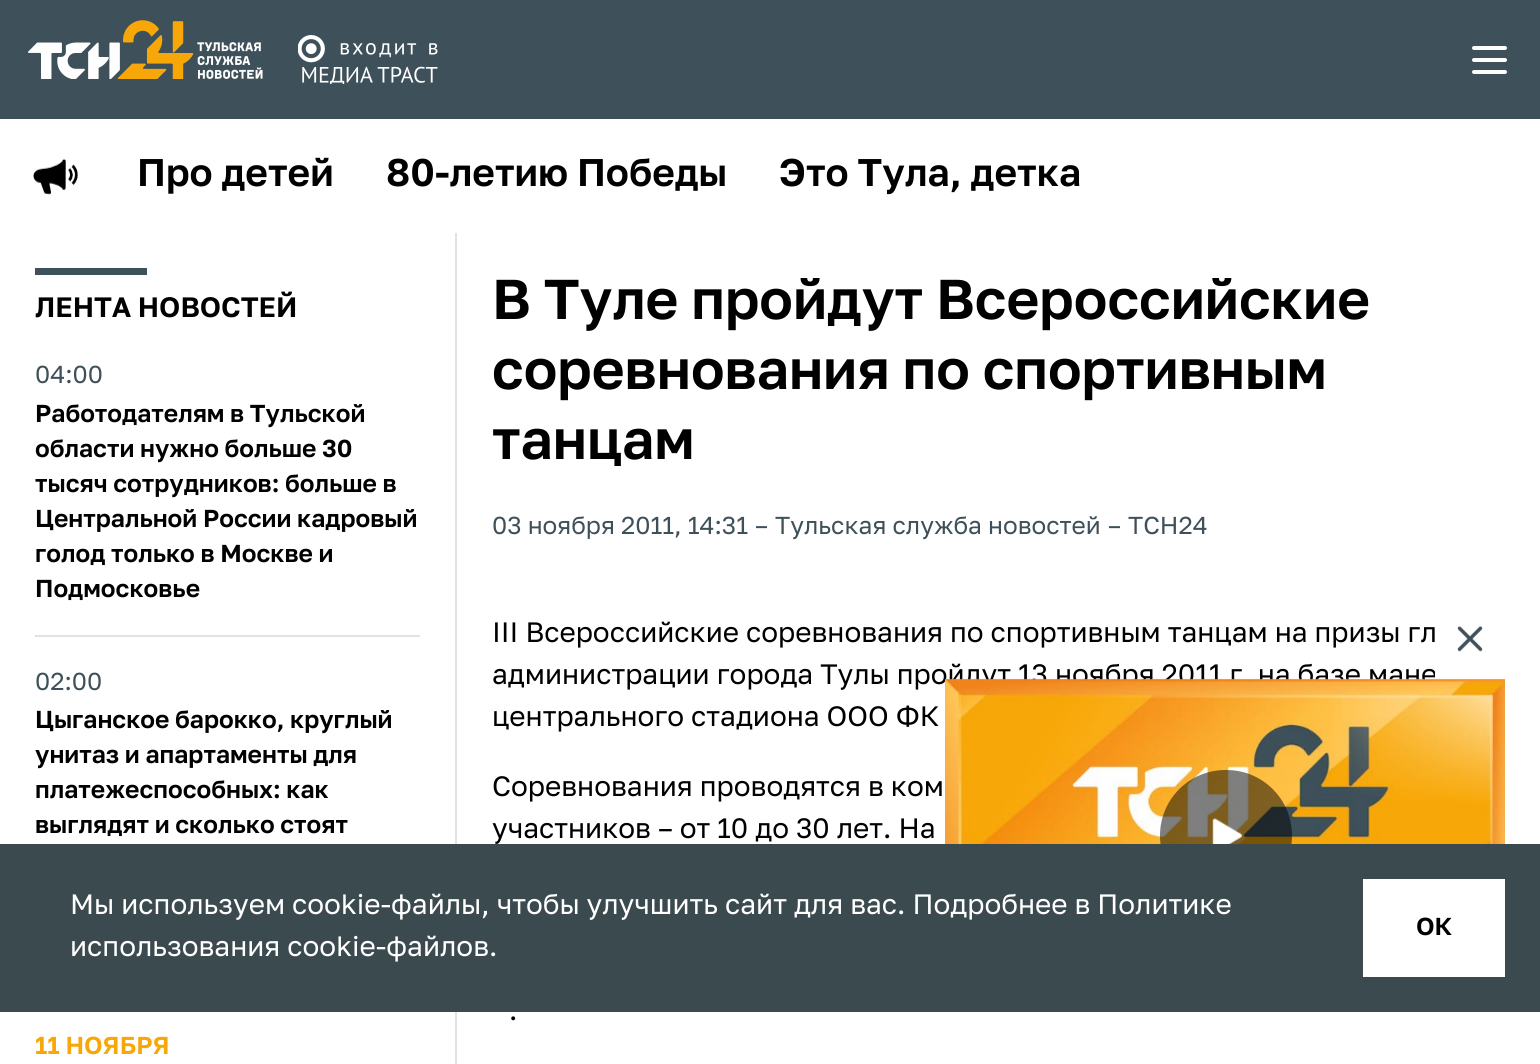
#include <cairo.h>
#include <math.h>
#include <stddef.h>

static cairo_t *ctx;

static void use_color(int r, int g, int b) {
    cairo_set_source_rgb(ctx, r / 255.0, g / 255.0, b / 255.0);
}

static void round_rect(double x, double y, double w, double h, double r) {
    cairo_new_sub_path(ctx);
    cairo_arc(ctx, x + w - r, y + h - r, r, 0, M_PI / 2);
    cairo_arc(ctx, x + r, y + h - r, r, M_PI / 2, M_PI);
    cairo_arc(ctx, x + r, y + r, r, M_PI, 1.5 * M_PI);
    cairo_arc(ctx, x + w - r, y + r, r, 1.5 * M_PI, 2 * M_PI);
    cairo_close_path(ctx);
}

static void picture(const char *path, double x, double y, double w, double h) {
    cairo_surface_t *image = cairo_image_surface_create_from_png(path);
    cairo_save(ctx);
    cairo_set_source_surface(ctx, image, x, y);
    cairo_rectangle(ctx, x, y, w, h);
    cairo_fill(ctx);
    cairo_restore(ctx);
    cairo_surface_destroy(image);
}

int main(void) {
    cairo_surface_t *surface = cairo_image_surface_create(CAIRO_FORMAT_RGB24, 1540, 1064);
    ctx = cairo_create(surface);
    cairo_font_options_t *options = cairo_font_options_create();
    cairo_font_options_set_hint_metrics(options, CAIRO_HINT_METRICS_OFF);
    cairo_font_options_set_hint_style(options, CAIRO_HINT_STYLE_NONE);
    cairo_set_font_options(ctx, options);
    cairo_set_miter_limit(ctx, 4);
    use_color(255, 255, 255);
    cairo_paint(ctx);
    use_color(62, 80, 89);
    cairo_rectangle(ctx, 0, 0, 1540, 119);
    cairo_fill(ctx);
    picture("img1.png", 28, 20, 235, 59);
    picture("img2.png", 298, 35, 140, 49);
    use_color(255, 255, 255);
    round_rect(1472, 46, 35, 4, 2);
    cairo_fill(ctx);
    round_rect(1472, 58, 35, 4, 2);
    cairo_fill(ctx);
    round_rect(1472, 70, 35, 4, 2);
    cairo_fill(ctx);
    picture("img3.png", 33, 158, 45, 37);
    cairo_select_font_face(ctx, "Golos Text SemiBold", CAIRO_FONT_SLANT_NORMAL, CAIRO_FONT_WEIGHT_NORMAL);
    cairo_set_font_size(ctx, 38.5);
    use_color(0, 0, 0);
    cairo_move_to(ctx, 137, 186);
    cairo_show_text(ctx, "Про детей");
    cairo_move_to(ctx, 386, 186);
    cairo_show_text(ctx, "80-летию Победы");
    cairo_move_to(ctx, 779, 186);
    cairo_show_text(ctx, "Это Тула, детка");
    use_color(62, 80, 89);
    cairo_rectangle(ctx, 35, 268, 112, 7);
    cairo_fill(ctx);
    cairo_set_font_size(ctx, 28);
    use_color(0, 0, 0);
    cairo_move_to(ctx, 35, 317);
    cairo_show_text(ctx, "ЛЕНТА НОВОСТЕЙ");
    use_color(226, 226, 226);
    cairo_rectangle(ctx, 35, 635, 385, 2);
    cairo_fill(ctx);
    cairo_select_font_face(ctx, "Golos Text", CAIRO_FONT_SLANT_NORMAL, CAIRO_FONT_WEIGHT_NORMAL);
    cairo_set_font_size(ctx, 24.5);
    use_color(62, 80, 89);
    cairo_move_to(ctx, 35, 383);
    cairo_show_text(ctx, "04:00");
    cairo_select_font_face(ctx, "Golos Text SemiBold", CAIRO_FONT_SLANT_NORMAL, CAIRO_FONT_WEIGHT_NORMAL);
    use_color(0, 0, 0);
    cairo_move_to(ctx, 35, 422);
    cairo_show_text(ctx, "Работодателям в Тульской");
    cairo_move_to(ctx, 35, 457);
    cairo_show_text(ctx, "области нужно больше 30");
    cairo_move_to(ctx, 35, 492);
    cairo_show_text(ctx, "тысяч сотрудников: больше в");
    cairo_move_to(ctx, 35, 527);
    cairo_show_text(ctx, "Центральной России кадровый");
    cairo_move_to(ctx, 35, 562);
    cairo_show_text(ctx, "голод только в Москве и");
    cairo_move_to(ctx, 35, 597);
    cairo_show_text(ctx, "Подмосковье");
    cairo_select_font_face(ctx, "Golos Text", CAIRO_FONT_SLANT_NORMAL, CAIRO_FONT_WEIGHT_NORMAL);
    use_color(62, 80, 89);
    cairo_move_to(ctx, 35, 690);
    cairo_show_text(ctx, "02:00");
    cairo_select_font_face(ctx, "Golos Text SemiBold", CAIRO_FONT_SLANT_NORMAL, CAIRO_FONT_WEIGHT_NORMAL);
    use_color(0, 0, 0);
    cairo_move_to(ctx, 35, 728);
    cairo_show_text(ctx, "Цыганское барокко, круглый");
    cairo_move_to(ctx, 35, 763);
    cairo_show_text(ctx, "унитаз и апартаменты для");
    cairo_move_to(ctx, 35, 798);
    cairo_show_text(ctx, "платежеспособных: как");
    cairo_move_to(ctx, 35, 833);
    cairo_show_text(ctx, "выглядят и сколько стоят");
    use_color(247, 167, 7);
    cairo_move_to(ctx, 35, 1054);
    cairo_show_text(ctx, "11 НОЯБРЯ");
    use_color(226, 226, 226);
    cairo_rectangle(ctx, 455, 233, 2, 831);
    cairo_fill(ctx);
    cairo_set_font_size(ctx, 56);
    use_color(0, 0, 0);
    cairo_move_to(ctx, 492, 319);
    cairo_show_text(ctx, "В Туле пройдут Всероссийские");
    cairo_move_to(ctx, 492, 389);
    cairo_show_text(ctx, "соревнования по спортивным");
    cairo_move_to(ctx, 492, 459);
    cairo_show_text(ctx, "танцам");
    cairo_select_font_face(ctx, "Golos Text", CAIRO_FONT_SLANT_NORMAL, CAIRO_FONT_WEIGHT_NORMAL);
    cairo_set_font_size(ctx, 24.5);
    use_color(62, 80, 89);
    cairo_move_to(ctx, 492, 534);
    cairo_show_text(ctx, "03 ноября 2011, 14:31");
    cairo_move_to(ctx, 755, 534);
    cairo_show_text(ctx, "–");
    cairo_move_to(ctx, 775, 534);
    cairo_show_text(ctx, "Тульская служба новостей");
    cairo_move_to(ctx, 1108, 534);
    cairo_show_text(ctx, "–");
    cairo_move_to(ctx, 1128, 534);
    cairo_show_text(ctx, "ТСН24");
    cairo_set_font_size(ctx, 28);
    use_color(0, 0, 0);
    cairo_move_to(ctx, 492, 642);
    cairo_show_text(ctx, "III Всероссийские соревнования по спортивным танцам на призы гл");
    cairo_move_to(ctx, 492, 684);
    cairo_show_text(ctx, "администрации города Тулы пройдут 13 ноября 2011 г. на базе мане");
    cairo_move_to(ctx, 492, 726);
    cairo_show_text(ctx, "центрального стадиона ООО ФК");
    cairo_move_to(ctx, 492, 796);
    cairo_show_text(ctx, "Соревнования проводятся в ком");
    cairo_move_to(ctx, 492, 838);
    cairo_show_text(ctx, "участников – от 10 до 30 лет. На");
    cairo_move_to(ctx, 509, 1020);
    cairo_show_text(ctx, ".");
    use_color(255, 255, 255);
    cairo_rectangle(ctx, 1435, 672, 1, 6);
    cairo_fill(ctx);
    picture("img4.png", 1457, 625, 26, 27);
    picture("img5.png", 945, 678, 560, 166);
    cairo_set_source_rgba(ctx, 0, 0, 0, 0.5);
    round_rect(1160, 770, 132, 131, 65.5);
    cairo_fill(ctx);
    picture("img6.png", 1212, 818, 30, 26);
    use_color(59, 74, 79);
    cairo_rectangle(ctx, 0, 844, 1540, 168);
    cairo_fill(ctx);
    use_color(255, 255, 255);
    cairo_move_to(ctx, 70, 914);
    cairo_show_text(ctx, "Мы используем cookie-файлы, чтобы улучшить сайт для вас. Подробнее в Политике");
    cairo_move_to(ctx, 70, 956);
    cairo_show_text(ctx, "использования cookie-файлов.");
    cairo_rectangle(ctx, 1363, 879, 142, 98);
    cairo_fill(ctx);
    cairo_select_font_face(ctx, "Golos Text SemiBold", CAIRO_FONT_SLANT_NORMAL, CAIRO_FONT_WEIGHT_NORMAL);
    cairo_set_font_size(ctx, 24.5);
    use_color(0, 0, 0);
    cairo_move_to(ctx, 1416, 935);
    cairo_show_text(ctx, "ОК");
    cairo_surface_write_to_png(surface, "result.png");
    cairo_font_options_destroy(options);
    cairo_destroy(ctx);
    cairo_surface_destroy(surface);
    return 0;
}
